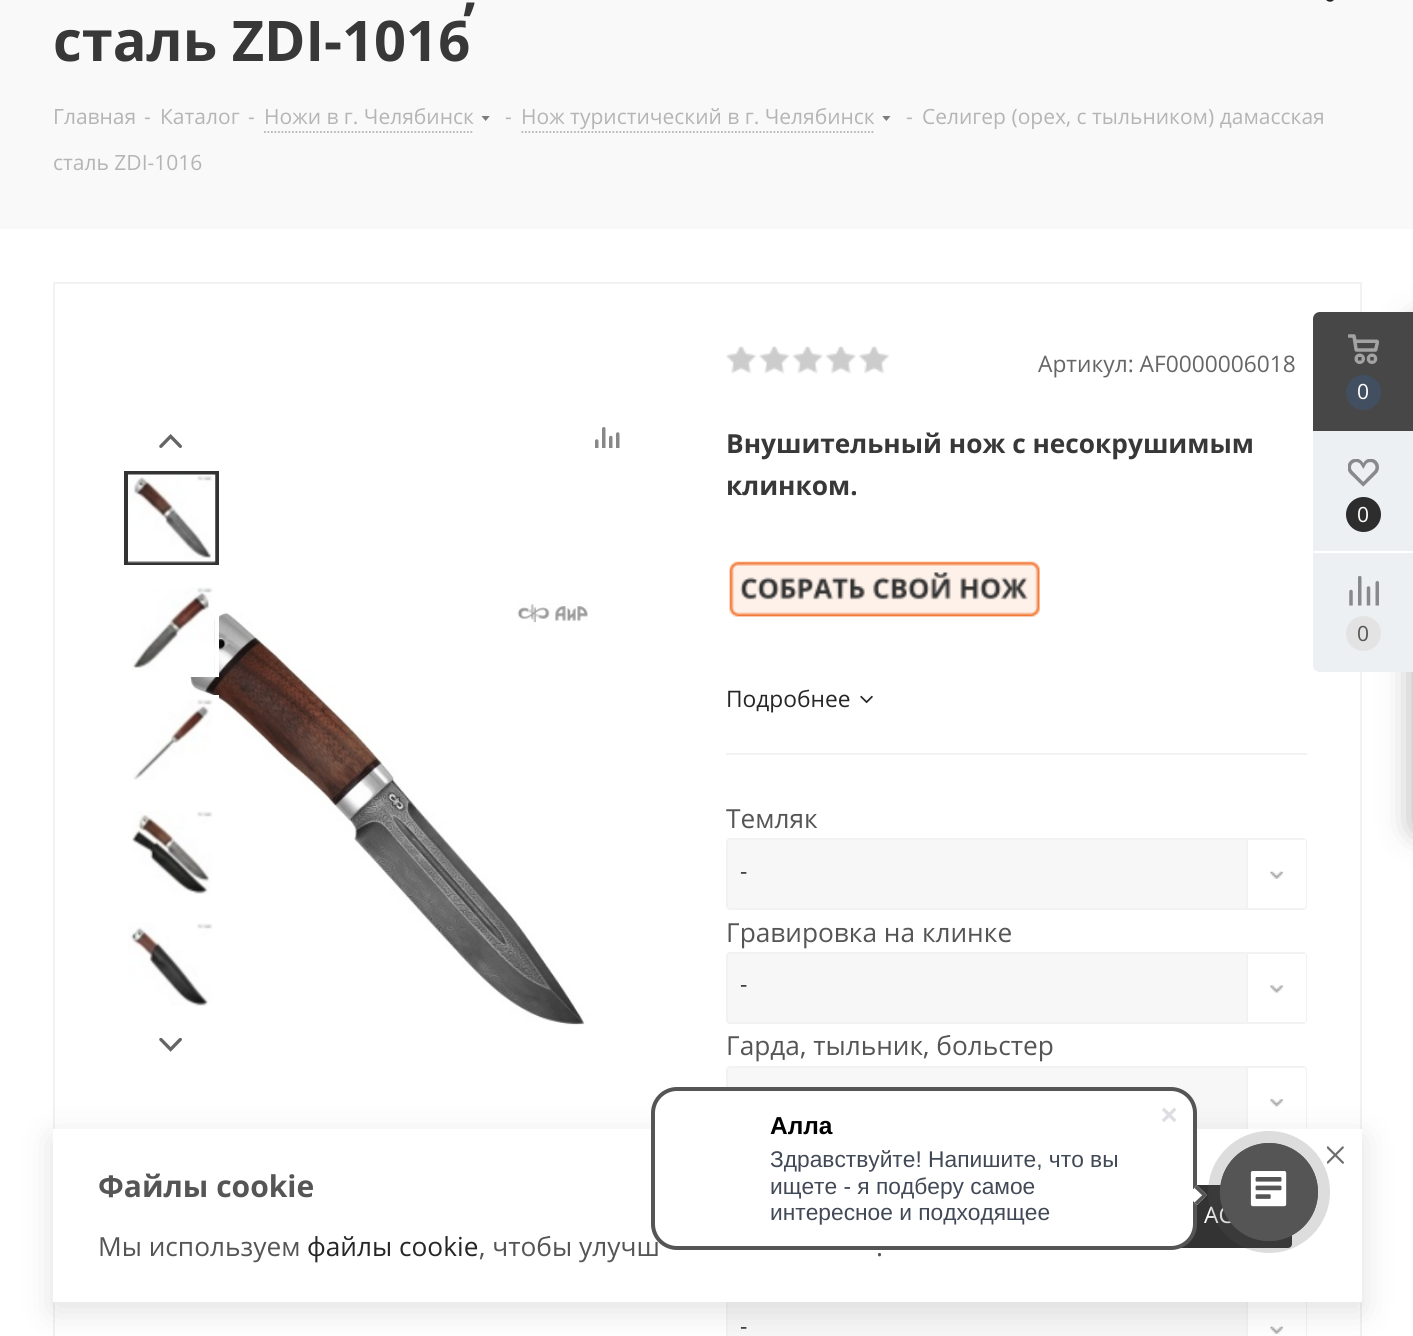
#include <cairo.h>
#include <math.h>
#include <stddef.h>

static cairo_t *ctx;

static void use_color(int r, int g, int b) {
    cairo_set_source_rgb(ctx, r / 255.0, g / 255.0, b / 255.0);
}

static void round_rect(double x, double y, double w, double h, double r) {
    cairo_new_sub_path(ctx);
    cairo_arc(ctx, x + w - r, y + h - r, r, 0, M_PI / 2);
    cairo_arc(ctx, x + r, y + h - r, r, M_PI / 2, M_PI);
    cairo_arc(ctx, x + r, y + r, r, M_PI, 1.5 * M_PI);
    cairo_arc(ctx, x + w - r, y + r, r, 1.5 * M_PI, 2 * M_PI);
    cairo_close_path(ctx);
}

static void shadow(double x, double y, double w, double h, double r, double blur, double alpha) {
    cairo_push_group_with_content(ctx, CAIRO_CONTENT_ALPHA);
    cairo_set_operator(ctx, CAIRO_OPERATOR_SOURCE);
    for (int i = 15; i >= -15 && fmin(w, h) + blur * i / 3 > 0; i -= 2) {
        double e = blur * i / 6;
        cairo_set_source_rgba(ctx, 0, 0, 0, alpha * erfc((i - 1) / 8.5) / 2);
        round_rect(x - e, y - e, w + 2 * e, h + 2 * e, fmax(0, fmin(r + e + blur * .6, fmin(w, h) / 2 + e)));
        cairo_fill(ctx);
    }
    cairo_pattern_t *soft = cairo_pop_group(ctx);
    cairo_mask(ctx, soft);
    cairo_pattern_destroy(soft);
}

static void picture(const char *path, double x, double y, double w, double h) {
    cairo_surface_t *image = cairo_image_surface_create_from_png(path);
    cairo_save(ctx);
    cairo_set_source_surface(ctx, image, x, y);
    cairo_rectangle(ctx, x, y, w, h);
    cairo_fill(ctx);
    cairo_restore(ctx);
    cairo_surface_destroy(image);
}

int main(void) {
    cairo_surface_t *surface = cairo_image_surface_create(CAIRO_FORMAT_RGB24, 1413, 1336);
    ctx = cairo_create(surface);
    cairo_font_options_t *options = cairo_font_options_create();
    cairo_font_options_set_hint_metrics(options, CAIRO_HINT_METRICS_OFF);
    cairo_font_options_set_hint_style(options, CAIRO_HINT_STYLE_NONE);
    cairo_set_font_options(ctx, options);
    cairo_set_miter_limit(ctx, 4);
    use_color(255, 255, 255);
    cairo_paint(ctx);
    use_color(249, 249, 249);
    cairo_rectangle(ctx, 0, 0, 1413, 229);
    cairo_fill(ctx);
    picture("img1.png", 1326, 0, 8, 2);
    cairo_select_font_face(ctx, "Open Sans", CAIRO_FONT_SLANT_NORMAL, CAIRO_FONT_WEIGHT_BOLD);
    cairo_set_font_size(ctx, 56);
    use_color(56, 56, 56);
    cairo_move_to(ctx, 462, 9);
    cairo_show_text(ctx, ",");
    cairo_move_to(ctx, 53, 61);
    cairo_show_text(ctx, "сталь ZDI-1016");
    cairo_select_font_face(ctx, "Open Sans", CAIRO_FONT_SLANT_NORMAL, CAIRO_FONT_WEIGHT_NORMAL);
    cairo_set_font_size(ctx, 21);
    use_color(182, 181, 181);
    cairo_move_to(ctx, 53, 124);
    cairo_show_text(ctx, "Главная");
    cairo_move_to(ctx, 144, 124);
    cairo_show_text(ctx, "-");
    cairo_move_to(ctx, 160, 124);
    cairo_show_text(ctx, "Каталог");
    cairo_move_to(ctx, 248, 124);
    cairo_show_text(ctx, "-");
    cairo_move_to(ctx, 264, 124);
    cairo_show_text(ctx, "Ножи в г. Челябинск");
    cairo_new_path(ctx);
    cairo_move_to(ctx, 264, 132);
    cairo_line_to(ctx, 474, 132);
    use_color(180, 180, 180);
    cairo_set_line_width(ctx, 1.8);
    cairo_set_dash(ctx, (double[]){1.75, 1.75}, 2, 0);
    cairo_stroke(ctx);
    picture("img2.png", 481, 116, 9, 5);
    use_color(182, 181, 181);
    cairo_move_to(ctx, 505, 124);
    cairo_show_text(ctx, "-");
    cairo_move_to(ctx, 521, 124);
    cairo_show_text(ctx, "Нож туристический в г. Челябинск");
    cairo_new_path(ctx);
    cairo_move_to(ctx, 521.5, 132);
    cairo_line_to(ctx, 875, 132);
    use_color(180, 180, 180);
    cairo_stroke(ctx);
    picture("img3.png", 882, 116, 9, 5);
    use_color(182, 181, 181);
    cairo_move_to(ctx, 906, 124);
    cairo_show_text(ctx, "-");
    cairo_move_to(ctx, 922, 124);
    cairo_show_text(ctx, "Селигер (орех, с тыльником) дамасская");
    cairo_move_to(ctx, 53, 170);
    cairo_show_text(ctx, "сталь ZDI-1016");
    cairo_rectangle(ctx, 54, 283, 1307, 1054);
    use_color(242, 242, 242);
    cairo_set_line_width(ctx, 2);
    cairo_set_dash(ctx, NULL, 0, 0);
    cairo_stroke(ctx);
    picture("img4.png", 159, 434, 23, 14);
    picture("img5.png", 159, 1038, 23, 14);
    cairo_rectangle(ctx, 126, 473, 91, 90);
    use_color(51, 51, 51);
    cairo_set_line_width(ctx, 4);
    cairo_stroke(ctx);
    picture("img6.png", 128, 474, 88, 89);
    picture("img11.png", 190, 603, 398, 422);
    cairo_rectangle(ctx, 126, 585, 91, 90);
    use_color(255, 255, 255);
    cairo_stroke(ctx);
    picture("img7.png", 132, 587, 83, 86);
    cairo_rectangle(ctx, 126, 697, 91, 90);
    cairo_stroke(ctx);
    picture("img8.png", 133, 699, 80, 81);
    picture("img9.png", 132, 811, 81, 83);
    picture("img10.png", 128, 923, 85, 83);
    picture("img12.png", 595, 427, 25, 21);
    use_color(242, 242, 242);
    cairo_rectangle(ctx, 726, 753, 581, 2);
    cairo_fill(ctx);
    picture("img13.png", 726, 346, 31, 28);
    picture("img14.png", 759, 346, 31, 28);
    picture("img15.png", 792, 346, 31, 28);
    picture("img16.png", 826, 346, 30, 28);
    picture("img17.png", 859, 346, 31, 28);
    cairo_set_font_size(ctx, 22.75);
    use_color(102, 102, 102);
    cairo_move_to(ctx, 1038, 372);
    cairo_show_text(ctx, "Артикул: AF0000006018");
    cairo_select_font_face(ctx, "Open Sans", CAIRO_FONT_SLANT_NORMAL, CAIRO_FONT_WEIGHT_BOLD);
    cairo_set_font_size(ctx, 26.25);
    use_color(56, 56, 56);
    cairo_move_to(ctx, 726, 453);
    cairo_show_text(ctx, "Внушительный нож с несокрушимым");
    cairo_move_to(ctx, 726, 495);
    cairo_show_text(ctx, "клинком.");
    picture("img18.png", 729, 561, 311, 56);
    cairo_select_font_face(ctx, "Open Sans", CAIRO_FONT_SLANT_NORMAL, CAIRO_FONT_WEIGHT_NORMAL);
    cairo_set_font_size(ctx, 22.75);
    use_color(39, 38, 38);
    cairo_move_to(ctx, 726, 707);
    cairo_show_text(ctx, "Подробнее");
    picture("img19.png", 860, 695, 13, 9);
    cairo_set_font_size(ctx, 26.25);
    use_color(85, 85, 85);
    cairo_move_to(ctx, 726, 828);
    cairo_show_text(ctx, "Темляк");
    use_color(247, 247, 247);
    round_rect(727, 839, 579, 70, 3);
    cairo_fill_preserve(ctx);
    use_color(242, 242, 242);
    cairo_set_line_width(ctx, 2);
    cairo_stroke(ctx);
    cairo_set_font_size(ctx, 22.75);
    use_color(56, 56, 56);
    cairo_move_to(ctx, 740, 879);
    cairo_show_text(ctx, "-");
    use_color(255, 255, 255);
    cairo_new_path(ctx);
    cairo_move_to(ctx, 1246, 840);
    cairo_line_to(ctx, 1304, 840);
    cairo_curve_to(ctx, 1305, 840, 1306, 841, 1306, 842);
    cairo_line_to(ctx, 1306, 906);
    cairo_curve_to(ctx, 1306, 907, 1305, 908, 1304, 908);
    cairo_line_to(ctx, 1246, 908);
    cairo_close_path(ctx);
    cairo_fill(ctx);
    use_color(242, 242, 242);
    cairo_rectangle(ctx, 1246, 840, 2, 68);
    cairo_fill(ctx);
    picture("img20.png", 1270, 871, 13, 8);
    cairo_set_font_size(ctx, 26.25);
    use_color(85, 85, 85);
    cairo_move_to(ctx, 726, 942);
    cairo_show_text(ctx, "Гравировка на клинке");
    use_color(247, 247, 247);
    round_rect(727, 953, 579, 70, 3);
    cairo_fill_preserve(ctx);
    use_color(242, 242, 242);
    cairo_stroke(ctx);
    cairo_set_font_size(ctx, 22.75);
    use_color(56, 56, 56);
    cairo_move_to(ctx, 740, 992);
    cairo_show_text(ctx, "-");
    use_color(255, 255, 255);
    cairo_new_path(ctx);
    cairo_move_to(ctx, 1246, 954);
    cairo_line_to(ctx, 1304, 954);
    cairo_curve_to(ctx, 1305, 954, 1306, 955, 1306, 956);
    cairo_line_to(ctx, 1306, 1020);
    cairo_curve_to(ctx, 1306, 1021, 1305, 1022, 1304, 1022);
    cairo_line_to(ctx, 1246, 1022);
    cairo_close_path(ctx);
    cairo_fill(ctx);
    use_color(242, 242, 242);
    cairo_rectangle(ctx, 1246, 954, 2, 68);
    cairo_fill(ctx);
    picture("img21.png", 1270, 985, 13, 8);
    cairo_set_font_size(ctx, 26.25);
    use_color(85, 85, 85);
    cairo_move_to(ctx, 726, 1055);
    cairo_show_text(ctx, "Гарда, тыльник, больстер");
    use_color(247, 247, 247);
    round_rect(727, 1067, 579, 70, 3);
    cairo_fill_preserve(ctx);
    use_color(242, 242, 242);
    cairo_stroke(ctx);
    use_color(255, 255, 255);
    cairo_new_path(ctx);
    cairo_move_to(ctx, 1246, 1068);
    cairo_line_to(ctx, 1304, 1068);
    cairo_curve_to(ctx, 1305, 1068, 1306, 1069, 1306, 1070);
    cairo_line_to(ctx, 1306, 1134);
    cairo_curve_to(ctx, 1306, 1135, 1305, 1136, 1304, 1136);
    cairo_line_to(ctx, 1246, 1136);
    cairo_close_path(ctx);
    cairo_fill(ctx);
    use_color(242, 242, 242);
    cairo_rectangle(ctx, 1246, 1068, 2, 68);
    cairo_fill(ctx);
    picture("img22.png", 1270, 1099, 13, 8);
    use_color(247, 247, 247);
    cairo_rectangle(ctx, 728, 1302, 518, 34);
    cairo_fill(ctx);
    cairo_rectangle(ctx, 727, 1294, 579, 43);
    use_color(242, 242, 242);
    cairo_stroke(ctx);
    cairo_set_font_size(ctx, 22.75);
    use_color(56, 56, 56);
    cairo_move_to(ctx, 740, 1334);
    cairo_show_text(ctx, "-");
    use_color(255, 255, 255);
    cairo_rectangle(ctx, 1305, 1302, 1, 34);
    cairo_fill(ctx);
    use_color(242, 242, 242);
    cairo_rectangle(ctx, 1246, 1295, 2, 41);
    cairo_fill(ctx);
    picture("img20.png", 1270, 1326, 13, 8);
    use_color(44, 44, 44);
    shadow(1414, 322, 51, 509, 4, 16, 0.4);
    use_color(237, 240, 243);
    cairo_new_path(ctx);
    cairo_move_to(ctx, 1320, 312);
    cairo_line_to(ctx, 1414, 312);
    cairo_line_to(ctx, 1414, 672);
    cairo_line_to(ctx, 1320, 672);
    cairo_curve_to(ctx, 1316, 672, 1313, 669, 1313, 665);
    cairo_line_to(ctx, 1313, 319);
    cairo_curve_to(ctx, 1313, 315, 1316, 312, 1320, 312);
    cairo_close_path(ctx);
    cairo_fill(ctx);
    use_color(71, 71, 71);
    cairo_new_path(ctx);
    cairo_move_to(ctx, 1320, 312);
    cairo_line_to(ctx, 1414, 312);
    cairo_line_to(ctx, 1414, 431);
    cairo_line_to(ctx, 1313, 431);
    cairo_line_to(ctx, 1313, 319);
    cairo_curve_to(ctx, 1313, 315, 1316, 312, 1320, 312);
    cairo_close_path(ctx);
    cairo_fill(ctx);
    picture("img23.png", 1348, 334, 31, 30);
    use_color(66, 79, 96);
    cairo_arc(ctx, 1363.5, 392.5, 17.5, 0, 2 * M_PI);
    cairo_fill(ctx);
    cairo_set_font_size(ctx, 21);
    use_color(255, 255, 255);
    cairo_move_to(ctx, 1357, 399);
    cairo_show_text(ctx, "0");
    picture("img24.png", 1348, 459, 31, 28);
    use_color(46, 45, 45);
    cairo_arc(ctx, 1363.5, 514.5, 17.5, 0, 2 * M_PI);
    cairo_fill(ctx);
    use_color(255, 255, 255);
    cairo_move_to(ctx, 1357, 522);
    cairo_show_text(ctx, "0");
    cairo_rectangle(ctx, 1313, 551, 100, 2);
    cairo_fill(ctx);
    picture("img25.png", 1349, 576, 30, 30);
    use_color(227, 227, 227);
    cairo_arc(ctx, 1363.5, 633.5, 17.5, 0, 2 * M_PI);
    cairo_fill(ctx);
    use_color(85, 85, 85);
    cairo_move_to(ctx, 1357, 641);
    cairo_show_text(ctx, "0");
    use_color(0, 0, 0);
    shadow(53, 1138, 1309, 173, 0, 17.5, 0.12);
    use_color(255, 255, 255);
    cairo_rectangle(ctx, 53, 1129, 1309, 173);
    cairo_fill(ctx);
    cairo_set_font_size(ctx, 26.25);
    use_color(85, 85, 85);
    cairo_move_to(ctx, 479, 1256);
    cairo_show_text(ctx, ", чтобы улучш");
    use_color(51, 51, 51);
    round_rect(1116, 1186, 175, 61, 3);
    cairo_fill_preserve(ctx);
    cairo_stroke(ctx);
    use_color(255, 255, 255);
    round_rect(653, 1089, 542, 159, 24);
    cairo_fill_preserve(ctx);
    use_color(85, 85, 85);
    cairo_set_line_width(ctx, 4);
    cairo_stroke(ctx);
    picture("img26.png", 1162, 1107, 15, 15);
    cairo_select_font_face(ctx, "Liberation Sans", CAIRO_FONT_SLANT_NORMAL, CAIRO_FONT_WEIGHT_BOLD);
    cairo_set_font_size(ctx, 24.5);
    use_color(0, 0, 0);
    cairo_move_to(ctx, 770, 1134);
    cairo_show_text(ctx, "Алла");
    cairo_select_font_face(ctx, "Liberation Sans", CAIRO_FONT_SLANT_NORMAL, CAIRO_FONT_WEIGHT_NORMAL);
    cairo_set_font_size(ctx, 22.75);
    use_color(66, 73, 86);
    cairo_move_to(ctx, 770, 1167);
    cairo_show_text(ctx, "Здравствуйте! Напишите, что вы");
    cairo_move_to(ctx, 770, 1194);
    cairo_show_text(ctx, "ищете - я подберу самое");
    cairo_move_to(ctx, 770, 1220);
    cairo_show_text(ctx, "интересное и подходящее");
    use_color(255, 255, 255);
    cairo_new_path(ctx);
    cairo_move_to(ctx, 1187, 1195);
    cairo_line_to(ctx, 1197, 1185.5);
    cairo_line_to(ctx, 1207, 1195);
    cairo_line_to(ctx, 1197, 1205);
    cairo_close_path(ctx);
    cairo_fill(ctx);
    use_color(85, 85, 85);
    cairo_new_path(ctx);
    cairo_move_to(ctx, 1194.5, 1188);
    cairo_line_to(ctx, 1197, 1185.5);
    cairo_line_to(ctx, 1207, 1195);
    cairo_line_to(ctx, 1204.5, 1197.5);
    cairo_close_path(ctx);
    cairo_fill(ctx);
    cairo_new_path(ctx);
    cairo_move_to(ctx, 1194.5, 1202.5);
    cairo_line_to(ctx, 1204.5, 1193);
    cairo_line_to(ctx, 1207, 1195);
    cairo_line_to(ctx, 1197, 1205);
    cairo_close_path(ctx);
    cairo_fill(ctx);
    picture("img28.png", 1327, 1146, 17, 18);
    cairo_select_font_face(ctx, "Open Sans", CAIRO_FONT_SLANT_NORMAL, CAIRO_FONT_WEIGHT_NORMAL);
    use_color(255, 255, 255);
    cairo_move_to(ctx, 1204, 1223);
    cairo_show_text(ctx, "АС");
    cairo_set_source_rgba(ctx, 0.333, 0.333, 0.333, 0.2);
    cairo_new_path(ctx);
    cairo_arc(ctx, 1269, 1192, 61, 0, 2 * M_PI);
    cairo_fill(ctx);
    cairo_arc(ctx, 1269, 1192, 48.5, 0, 2 * M_PI);
    use_color(85, 85, 85);
    cairo_set_line_width(ctx, 1);
    cairo_stroke(ctx);
    cairo_arc(ctx, 1269, 1192, 49, 0, 2 * M_PI);
    cairo_fill(ctx);
    picture("img27.png", 1250, 1171, 37, 36);
    cairo_select_font_face(ctx, "Open Sans", CAIRO_FONT_SLANT_NORMAL, CAIRO_FONT_WEIGHT_BOLD);
    cairo_set_font_size(ctx, 30);
    cairo_move_to(ctx, 98, 1197);
    cairo_show_text(ctx, "Файлы cookie");
    cairo_select_font_face(ctx, "Open Sans", CAIRO_FONT_SLANT_NORMAL, CAIRO_FONT_WEIGHT_NORMAL);
    cairo_set_font_size(ctx, 26.25);
    cairo_move_to(ctx, 98, 1256);
    cairo_show_text(ctx, "Мы используем");
    use_color(39, 38, 38);
    cairo_move_to(ctx, 307, 1256);
    cairo_show_text(ctx, "файлы cookie");
    use_color(85, 85, 85);
    cairo_move_to(ctx, 876, 1256);
    cairo_show_text(ctx, ".");
    cairo_surface_write_to_png(surface, "result.png");
    cairo_font_options_destroy(options);
    cairo_destroy(ctx);
    cairo_surface_destroy(surface);
    return 0;
}
